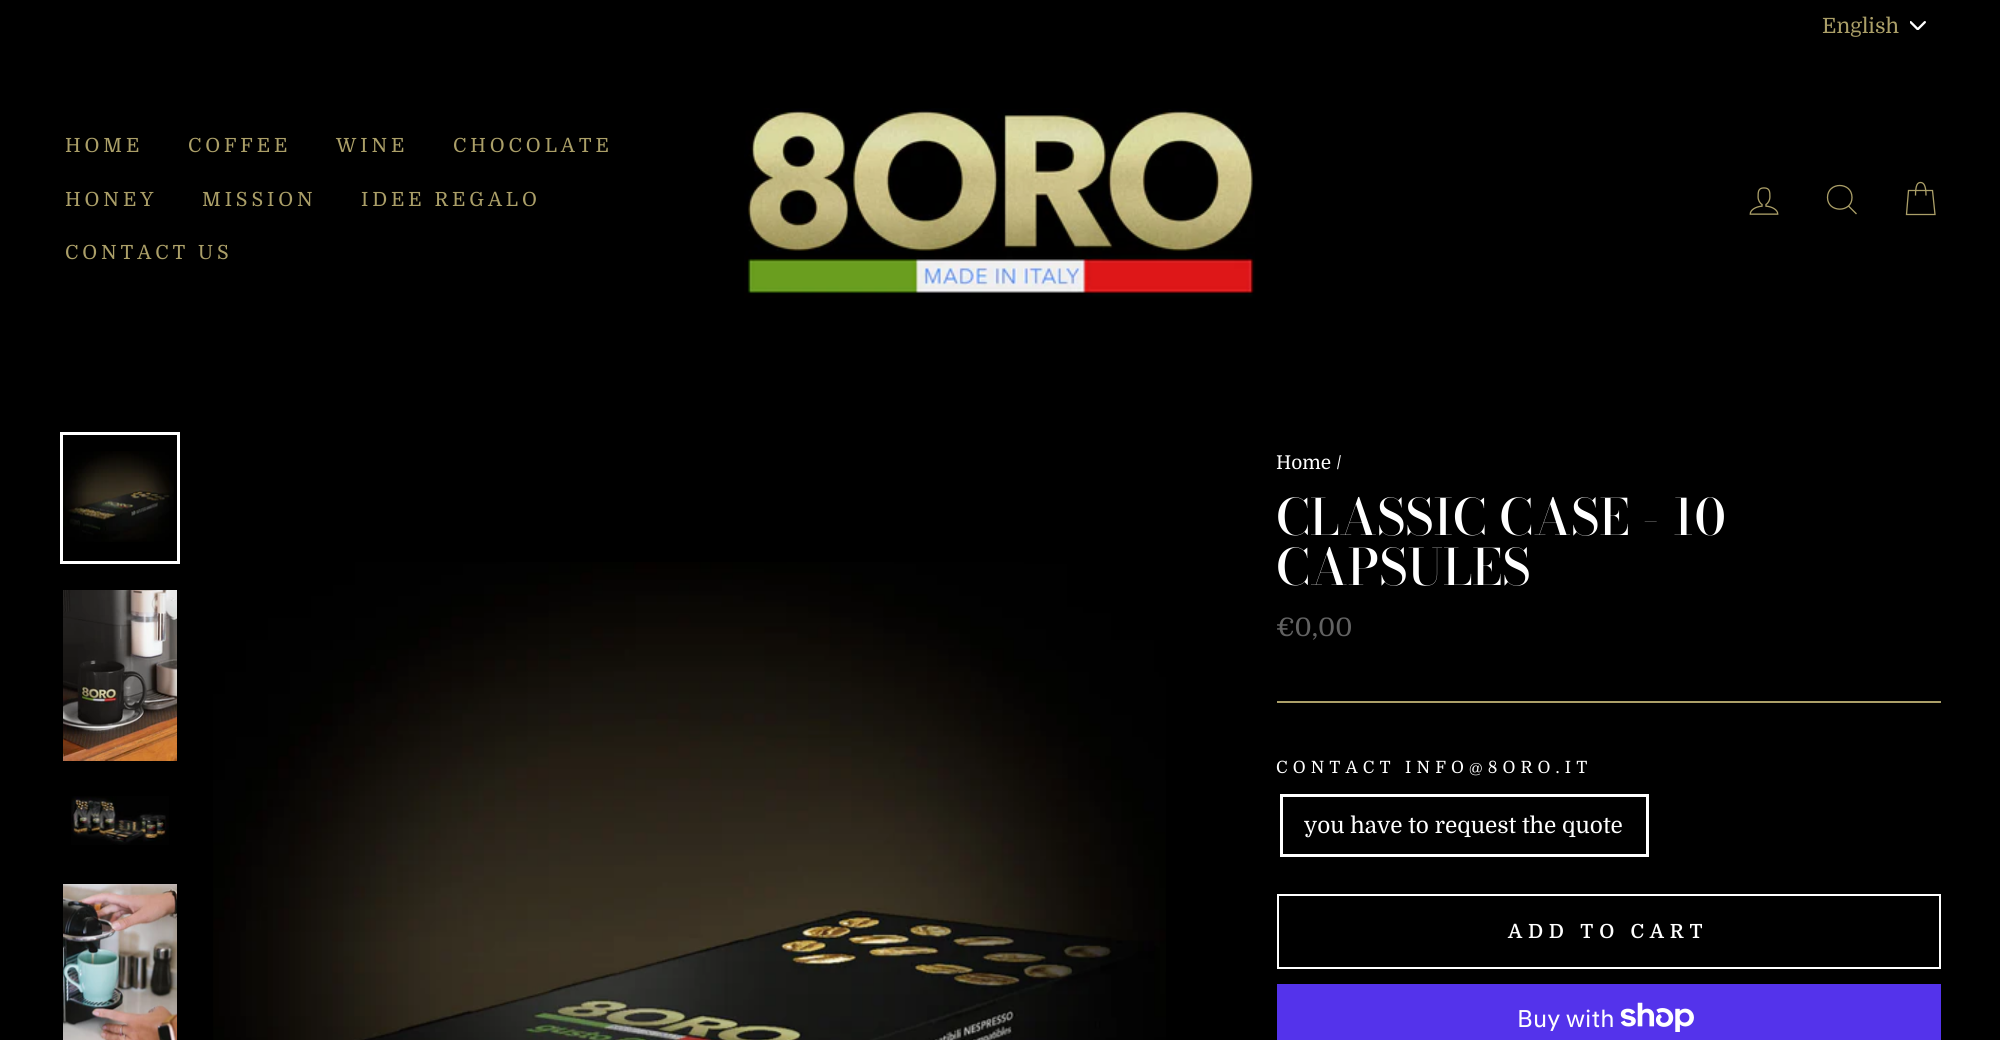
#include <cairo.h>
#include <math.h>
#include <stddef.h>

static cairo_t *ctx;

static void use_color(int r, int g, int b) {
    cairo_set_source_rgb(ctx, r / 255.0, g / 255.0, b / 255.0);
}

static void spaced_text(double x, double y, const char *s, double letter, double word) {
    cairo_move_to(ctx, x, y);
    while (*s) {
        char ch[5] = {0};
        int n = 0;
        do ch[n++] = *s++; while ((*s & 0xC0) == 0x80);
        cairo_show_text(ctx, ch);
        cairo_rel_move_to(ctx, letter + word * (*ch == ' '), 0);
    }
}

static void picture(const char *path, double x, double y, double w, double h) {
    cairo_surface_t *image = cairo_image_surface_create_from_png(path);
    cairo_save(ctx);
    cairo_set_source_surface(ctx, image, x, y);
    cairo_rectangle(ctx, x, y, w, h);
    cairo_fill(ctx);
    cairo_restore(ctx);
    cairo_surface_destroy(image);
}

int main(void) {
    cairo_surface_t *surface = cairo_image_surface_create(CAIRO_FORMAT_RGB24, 2000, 1040);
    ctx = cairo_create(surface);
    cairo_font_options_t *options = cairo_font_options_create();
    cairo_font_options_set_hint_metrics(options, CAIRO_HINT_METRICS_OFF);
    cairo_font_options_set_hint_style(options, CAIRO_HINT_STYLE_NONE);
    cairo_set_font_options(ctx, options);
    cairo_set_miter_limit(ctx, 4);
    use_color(0, 0, 0);
    cairo_paint(ctx);
    picture("img1.png", 1910, 21, 16, 9);
    cairo_select_font_face(ctx, "Domine", CAIRO_FONT_SLANT_NORMAL, CAIRO_FONT_WEIGHT_NORMAL);
    cairo_set_font_size(ctx, 21);
    use_color(171, 159, 104);
    cairo_move_to(ctx, 1822, 33);
    cairo_show_text(ctx, "English");
    cairo_set_font_size(ctx, 19.5);
    spaced_text(65, 152, "HOME", 3.9, 0);
    spaced_text(188, 152, "COFFEE", 3.9, 0);
    spaced_text(336, 152, "WINE", 3.9, 0);
    spaced_text(453, 152, "CHOCOLATE", 3.9, 0);
    spaced_text(65, 206, "HONEY", 3.9, 0);
    spaced_text(202, 206, "MISSION", 3.9, 0);
    spaced_text(361, 206, "IDEE REGALO", 3.9, 0);
    spaced_text(65, 259, "CONTACT US", 3.9, 0);
    picture("img2.png", 744, 108, 511, 190);
    picture("img3.png", 1749, 187, 30, 28);
    cairo_new_path(ctx);
    cairo_move_to(ctx, 1852, 197.5);
    cairo_curve_to(ctx, 1852, 213, 1827.5, 213, 1827.5, 197.5);
    cairo_curve_to(ctx, 1827.5, 181.5, 1852, 181.5, 1852, 197.5);
    cairo_close_path(ctx);
    cairo_move_to(ctx, 1856.5, 214);
    cairo_line_to(ctx, 1848.5, 206);
    cairo_set_line_width(ctx, 1.3);
    cairo_stroke(ctx);
    cairo_new_path(ctx);
    cairo_move_to(ctx, 1915.5, 195.5);
    cairo_curve_to(ctx, 1915.5, 185, 1917.5, 182.5, 1920.5, 182.5);
    cairo_curve_to(ctx, 1923.5, 182.5, 1926, 185, 1926, 195.5);
    cairo_move_to(ctx, 1908.5, 190.5);
    cairo_line_to(ctx, 1932.5, 190.5);
    cairo_line_to(ctx, 1935, 214.5);
    cairo_line_to(ctx, 1906.5, 214.5);
    cairo_close_path(ctx);
    cairo_stroke(ctx);
    cairo_rectangle(ctx, 61.5, 433.5, 117, 129);
    use_color(255, 255, 255);
    cairo_set_line_width(ctx, 3);
    cairo_stroke(ctx);
    picture("img4.png", 63, 451, 111, 91);
    picture("img5.png", 63, 590, 114, 171);
    picture("img6.png", 71, 796, 98, 49);
    picture("img7.png", 63, 884, 114, 156);
    picture("img8.png", 213, 562, 953, 478);
    cairo_set_font_size(ctx, 19);
    cairo_move_to(ctx, 1276, 469);
    cairo_show_text(ctx, "Home /");
    cairo_select_font_face(ctx, "Bodoni Moda Medium", CAIRO_FONT_SLANT_NORMAL, CAIRO_FONT_WEIGHT_NORMAL);
    cairo_set_font_size(ctx, 49.75);
    cairo_move_to(ctx, 1276, 535);
    cairo_show_text(ctx, "CLASSIC CASE - 10");
    cairo_move_to(ctx, 1276, 585);
    cairo_show_text(ctx, "CAPSULES");
    cairo_select_font_face(ctx, "Domine", CAIRO_FONT_SLANT_NORMAL, CAIRO_FONT_WEIGHT_NORMAL);
    cairo_set_font_size(ctx, 25.5);
    use_color(98, 98, 98);
    cairo_move_to(ctx, 1276, 636);
    cairo_show_text(ctx, "€0,00");
    use_color(171, 159, 104);
    cairo_rectangle(ctx, 1277, 701, 664, 2);
    cairo_fill(ctx);
    cairo_set_font_size(ctx, 16.9);
    use_color(255, 255, 255);
    spaced_text(1276, 773, "CONTACT INFO@8ORO.IT", 5.1, 0);
    cairo_rectangle(ctx, 1281.5, 795.5, 366, 60);
    cairo_stroke(ctx);
    cairo_set_font_size(ctx, 22.5);
    cairo_move_to(ctx, 1304, 833);
    cairo_show_text(ctx, "you have to request the quote");
    cairo_rectangle(ctx, 1278, 895, 662, 73);
    cairo_set_line_width(ctx, 2);
    cairo_stroke(ctx);
    cairo_select_font_face(ctx, "Domine SemiBold", CAIRO_FONT_SLANT_NORMAL, CAIRO_FONT_WEIGHT_NORMAL);
    cairo_set_font_size(ctx, 19.5);
    spaced_text(1508, 938, "ADD TO CART", 5.8, 0);
    use_color(84, 51, 235);
    cairo_rectangle(ctx, 1277, 984, 664, 56);
    cairo_fill(ctx);
    cairo_select_font_face(ctx, "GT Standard", CAIRO_FONT_SLANT_NORMAL, CAIRO_FONT_WEIGHT_NORMAL);
    cairo_set_font_size(ctx, 24);
    use_color(255, 255, 255);
    cairo_move_to(ctx, 1517, 1027);
    cairo_show_text(ctx, "Buy with");
    picture("img9.png", 1620, 1002, 74, 30);
    cairo_surface_write_to_png(surface, "result.png");
    cairo_font_options_destroy(options);
    cairo_destroy(ctx);
    cairo_surface_destroy(surface);
    return 0;
}
